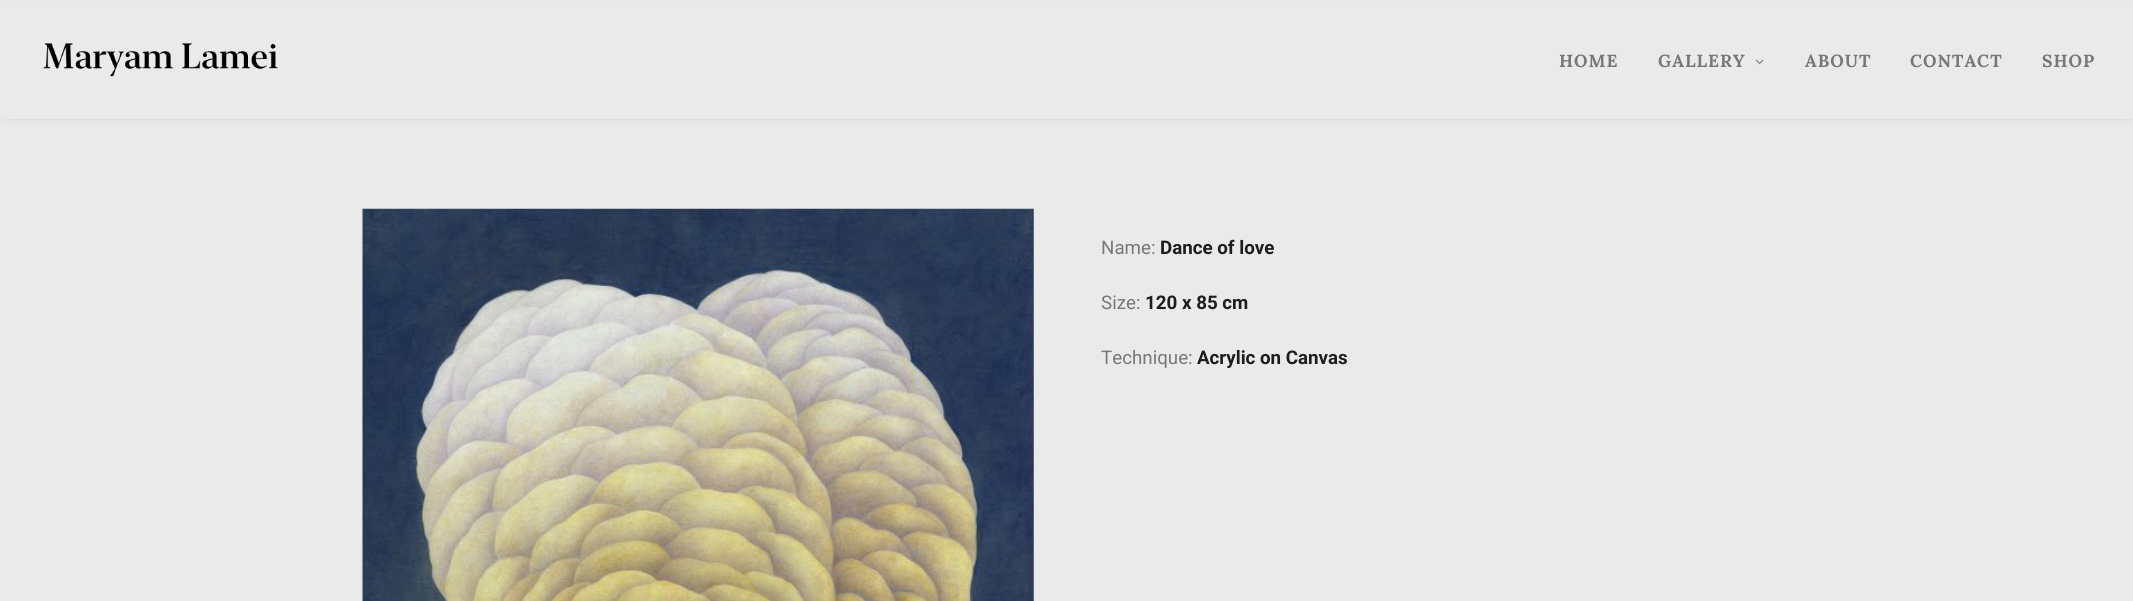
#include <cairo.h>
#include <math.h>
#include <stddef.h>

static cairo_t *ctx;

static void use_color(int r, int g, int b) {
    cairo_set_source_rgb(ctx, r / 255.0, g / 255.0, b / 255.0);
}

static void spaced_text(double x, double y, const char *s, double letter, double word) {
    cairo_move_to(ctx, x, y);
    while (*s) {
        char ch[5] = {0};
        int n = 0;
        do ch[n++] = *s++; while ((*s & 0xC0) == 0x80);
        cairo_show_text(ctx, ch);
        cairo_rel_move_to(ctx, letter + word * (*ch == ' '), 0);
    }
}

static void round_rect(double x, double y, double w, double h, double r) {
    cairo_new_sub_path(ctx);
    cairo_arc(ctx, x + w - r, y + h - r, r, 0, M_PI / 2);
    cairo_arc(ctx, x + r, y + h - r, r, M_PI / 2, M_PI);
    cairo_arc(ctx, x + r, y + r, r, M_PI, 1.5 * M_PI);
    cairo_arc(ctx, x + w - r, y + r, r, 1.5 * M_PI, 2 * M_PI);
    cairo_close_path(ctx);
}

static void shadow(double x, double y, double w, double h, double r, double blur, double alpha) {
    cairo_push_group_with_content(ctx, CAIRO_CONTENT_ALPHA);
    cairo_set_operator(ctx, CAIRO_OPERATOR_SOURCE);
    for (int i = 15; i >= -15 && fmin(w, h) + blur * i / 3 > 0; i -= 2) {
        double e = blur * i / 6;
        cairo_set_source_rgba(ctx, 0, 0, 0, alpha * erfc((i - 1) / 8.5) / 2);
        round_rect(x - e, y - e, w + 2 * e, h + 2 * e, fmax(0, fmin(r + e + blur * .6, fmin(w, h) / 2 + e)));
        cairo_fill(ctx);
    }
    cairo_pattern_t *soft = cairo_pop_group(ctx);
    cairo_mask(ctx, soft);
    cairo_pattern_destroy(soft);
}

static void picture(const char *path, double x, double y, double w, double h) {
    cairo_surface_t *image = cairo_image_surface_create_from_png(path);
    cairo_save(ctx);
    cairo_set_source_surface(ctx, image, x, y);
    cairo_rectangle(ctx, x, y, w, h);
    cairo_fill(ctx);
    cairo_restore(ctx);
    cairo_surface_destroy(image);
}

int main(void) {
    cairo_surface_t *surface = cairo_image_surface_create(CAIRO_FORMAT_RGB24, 2133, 601);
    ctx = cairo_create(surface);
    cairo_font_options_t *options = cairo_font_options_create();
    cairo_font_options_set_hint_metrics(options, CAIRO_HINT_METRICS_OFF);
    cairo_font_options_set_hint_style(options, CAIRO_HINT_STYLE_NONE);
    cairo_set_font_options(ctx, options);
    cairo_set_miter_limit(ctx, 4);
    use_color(234, 234, 234);
    cairo_paint(ctx);
    use_color(0, 0, 0);
    shadow(8, 18, 2120, 93, 0, 6, 0.6);
    use_color(234, 234, 234);
    cairo_rectangle(ctx, 0, 5, 2133, 114);
    cairo_fill(ctx);
    picture("img1.png", 43, 43, 235, 34);
    cairo_select_font_face(ctx, "Lora", CAIRO_FONT_SLANT_NORMAL, CAIRO_FONT_WEIGHT_BOLD);
    cairo_set_font_size(ctx, 17.5);
    use_color(119, 119, 119);
    spaced_text(1559, 67, "HOME", 1, 0);
    spaced_text(1658, 67, "GALLERY", 1, 0);
    picture("img2.png", 1755, 59, 9, 6);
    spaced_text(1805, 67, "ABOUT", 1, 0);
    spaced_text(1910, 67, "CONTACT", 1, 0);
    spaced_text(2042, 67, "SHOP", 1, 0);
    picture("img3.png", 362, 208, 672, 393);
    cairo_select_font_face(ctx, "Roboto", CAIRO_FONT_SLANT_NORMAL, CAIRO_FONT_WEIGHT_NORMAL);
    cairo_set_font_size(ctx, 18.75);
    cairo_move_to(ctx, 1101, 254);
    cairo_show_text(ctx, "Name:");
    cairo_select_font_face(ctx, "Roboto", CAIRO_FONT_SLANT_NORMAL, CAIRO_FONT_WEIGHT_BOLD);
    use_color(27, 29, 31);
    cairo_move_to(ctx, 1160, 254);
    cairo_show_text(ctx, "Dance of love");
    cairo_select_font_face(ctx, "Roboto", CAIRO_FONT_SLANT_NORMAL, CAIRO_FONT_WEIGHT_NORMAL);
    use_color(119, 119, 119);
    cairo_move_to(ctx, 1101, 309);
    cairo_show_text(ctx, "Size:");
    cairo_select_font_face(ctx, "Roboto", CAIRO_FONT_SLANT_NORMAL, CAIRO_FONT_WEIGHT_BOLD);
    use_color(27, 29, 31);
    cairo_move_to(ctx, 1145, 309);
    cairo_show_text(ctx, "120 x 85 cm");
    cairo_select_font_face(ctx, "Roboto", CAIRO_FONT_SLANT_NORMAL, CAIRO_FONT_WEIGHT_NORMAL);
    use_color(119, 119, 119);
    cairo_move_to(ctx, 1101, 364);
    cairo_show_text(ctx, "Technique:");
    cairo_select_font_face(ctx, "Roboto", CAIRO_FONT_SLANT_NORMAL, CAIRO_FONT_WEIGHT_BOLD);
    use_color(27, 29, 31);
    cairo_move_to(ctx, 1197, 364);
    cairo_show_text(ctx, "Acrylic on Canvas");
    cairo_surface_write_to_png(surface, "result.png");
    cairo_font_options_destroy(options);
    cairo_destroy(ctx);
    cairo_surface_destroy(surface);
    return 0;
}
